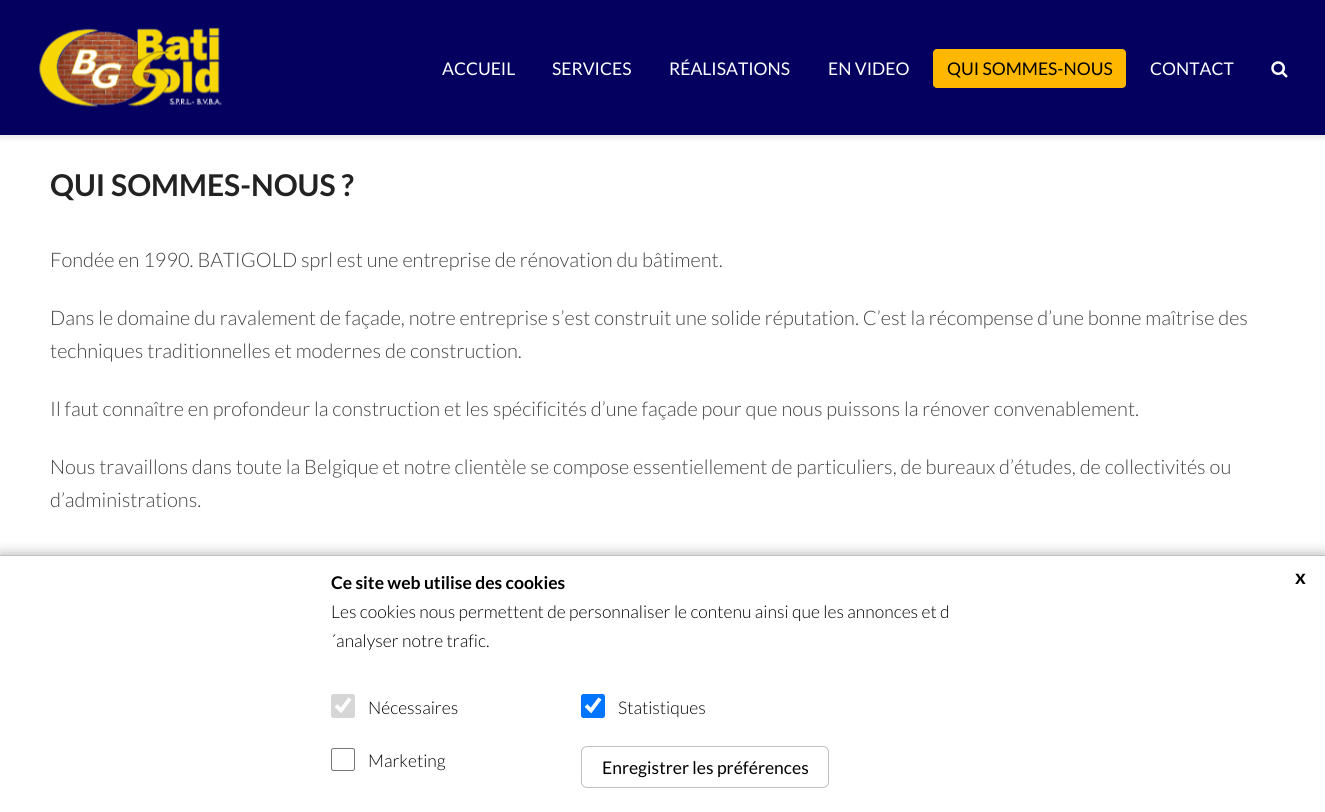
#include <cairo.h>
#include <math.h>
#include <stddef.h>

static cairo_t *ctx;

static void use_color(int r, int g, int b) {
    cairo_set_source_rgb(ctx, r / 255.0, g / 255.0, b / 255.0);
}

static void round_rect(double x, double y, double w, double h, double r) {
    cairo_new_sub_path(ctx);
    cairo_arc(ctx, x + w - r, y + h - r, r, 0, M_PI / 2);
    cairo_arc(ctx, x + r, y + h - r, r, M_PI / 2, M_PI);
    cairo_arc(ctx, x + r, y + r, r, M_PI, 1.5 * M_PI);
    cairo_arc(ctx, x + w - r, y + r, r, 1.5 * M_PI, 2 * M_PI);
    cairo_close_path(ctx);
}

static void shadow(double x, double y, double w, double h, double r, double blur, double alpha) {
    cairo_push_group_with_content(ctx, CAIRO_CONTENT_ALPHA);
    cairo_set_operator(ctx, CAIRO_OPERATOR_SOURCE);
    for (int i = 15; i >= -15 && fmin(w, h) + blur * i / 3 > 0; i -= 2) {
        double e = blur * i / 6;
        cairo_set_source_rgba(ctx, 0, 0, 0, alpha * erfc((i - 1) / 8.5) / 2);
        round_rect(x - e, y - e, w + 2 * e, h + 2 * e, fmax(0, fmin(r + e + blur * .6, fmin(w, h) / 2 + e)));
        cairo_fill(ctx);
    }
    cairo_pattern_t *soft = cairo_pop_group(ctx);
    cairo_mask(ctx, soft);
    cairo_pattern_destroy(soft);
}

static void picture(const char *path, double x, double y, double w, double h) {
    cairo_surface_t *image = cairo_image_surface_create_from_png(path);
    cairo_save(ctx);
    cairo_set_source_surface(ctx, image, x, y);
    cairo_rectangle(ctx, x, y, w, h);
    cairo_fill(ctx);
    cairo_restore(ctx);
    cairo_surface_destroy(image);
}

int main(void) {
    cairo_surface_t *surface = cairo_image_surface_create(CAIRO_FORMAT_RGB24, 1325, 812);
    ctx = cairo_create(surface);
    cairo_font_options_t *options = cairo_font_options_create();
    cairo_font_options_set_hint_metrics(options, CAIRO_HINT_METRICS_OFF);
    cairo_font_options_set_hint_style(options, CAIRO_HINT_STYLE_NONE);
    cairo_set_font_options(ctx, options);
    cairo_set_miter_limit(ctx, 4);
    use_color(255, 255, 255);
    cairo_paint(ctx);
    use_color(0, 0, 0);
    shadow(0, 3, 1325, 135, 0, 3, 0.1);
    use_color(3, 0, 96);
    cairo_rectangle(ctx, 0, 0, 1325, 135);
    cairo_fill(ctx);
    picture("img1.png", 39, 27, 183, 80);
    cairo_select_font_face(ctx, "Lato", CAIRO_FONT_SLANT_NORMAL, CAIRO_FONT_WEIGHT_NORMAL);
    cairo_set_font_size(ctx, 17.5);
    use_color(255, 255, 255);
    cairo_move_to(ctx, 442, 75);
    cairo_show_text(ctx, "ACCUEIL");
    cairo_move_to(ctx, 552, 75);
    cairo_show_text(ctx, "SERVICES");
    cairo_move_to(ctx, 669, 75);
    cairo_show_text(ctx, "RÉALISATIONS");
    cairo_move_to(ctx, 828, 75);
    cairo_show_text(ctx, "EN VIDEO");
    use_color(255, 183, 0);
    round_rect(933, 49, 193, 39, 4);
    cairo_fill(ctx);
    use_color(0, 0, 0);
    cairo_move_to(ctx, 947, 75);
    cairo_show_text(ctx, "QUI SOMMES-NOUS");
    use_color(255, 255, 255);
    cairo_move_to(ctx, 1150, 75);
    cairo_show_text(ctx, "CONTACT");
    picture("img2.png", 1271, 61, 17, 17);
    cairo_select_font_face(ctx, "Lato", CAIRO_FONT_SLANT_NORMAL, CAIRO_FONT_WEIGHT_BOLD);
    cairo_set_font_size(ctx, 30);
    use_color(34, 34, 34);
    cairo_move_to(ctx, 50, 196);
    cairo_show_text(ctx, "QUI SOMMES-NOUS ?");
    cairo_select_font_face(ctx, "Lato Light", CAIRO_FONT_SLANT_NORMAL, CAIRO_FONT_WEIGHT_NORMAL);
    cairo_set_font_size(ctx, 20);
    use_color(66, 66, 66);
    cairo_move_to(ctx, 50, 267);
    cairo_show_text(ctx, "Fondée en 1990. BATIGOLD sprl est une entreprise de rénovation du bâtiment.");
    cairo_move_to(ctx, 50, 325);
    cairo_show_text(ctx, "Dans le domaine du ravalement de façade, notre entreprise s’est construit une solide réputation. C’est la récompense d’une bonne maîtrise des");
    cairo_move_to(ctx, 50, 358);
    cairo_show_text(ctx, "techniques traditionnelles et modernes de construction.");
    cairo_move_to(ctx, 50, 416);
    cairo_show_text(ctx, "Il faut connaître en profondeur la construction et les spécificités d’une façade pour que nous puissons la rénover convenablement.");
    cairo_move_to(ctx, 50, 474);
    cairo_show_text(ctx, "Nous travaillons dans toute la Belgique et notre clientèle se compose essentiellement de particuliers, de bureaux d’études, de collectivités ou");
    cairo_move_to(ctx, 50, 507);
    cairo_show_text(ctx, "d’administrations.");
    use_color(192, 192, 192);
    shadow(0, 553, 1325, 257, 0, 6, 1);
    use_color(255, 255, 255);
    cairo_rectangle(ctx, 0, 556, 1325, 256);
    cairo_fill(ctx);
    use_color(192, 192, 192);
    cairo_rectangle(ctx, 0, 555, 1325, 1);
    cairo_fill(ctx);
    cairo_select_font_face(ctx, "Lato", CAIRO_FONT_SLANT_NORMAL, CAIRO_FONT_WEIGHT_BOLD);
    cairo_set_font_size(ctx, 17.5);
    use_color(0, 0, 0);
    cairo_move_to(ctx, 331, 589);
    cairo_show_text(ctx, "Ce site web utilise des cookies");
    cairo_select_font_face(ctx, "Lato Light", CAIRO_FONT_SLANT_NORMAL, CAIRO_FONT_WEIGHT_NORMAL);
    cairo_move_to(ctx, 331, 618);
    cairo_show_text(ctx, "Les cookies nous permettent de personnaliser le contenu ainsi que les annonces et d");
    cairo_move_to(ctx, 331, 647);
    cairo_show_text(ctx, "´analyser notre trafic.");
    cairo_select_font_face(ctx, "Lato", CAIRO_FONT_SLANT_NORMAL, CAIRO_FONT_WEIGHT_BOLD);
    cairo_set_font_size(ctx, 20);
    cairo_move_to(ctx, 1295, 584);
    cairo_show_text(ctx, "x");
    use_color(214, 214, 214);
    round_rect(331, 694, 24, 24, 2.5);
    cairo_fill(ctx);
    cairo_new_path(ctx);
    cairo_move_to(ctx, 336, 705.5);
    cairo_line_to(ctx, 341, 710.5);
    cairo_line_to(ctx, 350, 698.5);
    use_color(255, 255, 255);
    cairo_set_line_width(ctx, 3.8);
    cairo_stroke(ctx);
    cairo_select_font_face(ctx, "Lato Light", CAIRO_FONT_SLANT_NORMAL, CAIRO_FONT_WEIGHT_NORMAL);
    cairo_set_font_size(ctx, 17.5);
    use_color(0, 0, 0);
    cairo_move_to(ctx, 368, 714);
    cairo_show_text(ctx, "Nécessaires");
    use_color(0, 117, 255);
    round_rect(581, 694, 24, 24, 2.5);
    cairo_fill(ctx);
    cairo_new_path(ctx);
    cairo_move_to(ctx, 586, 705.5);
    cairo_line_to(ctx, 591, 710.5);
    cairo_line_to(ctx, 600, 698.5);
    use_color(255, 255, 255);
    cairo_stroke(ctx);
    use_color(0, 0, 0);
    cairo_move_to(ctx, 618, 714);
    cairo_show_text(ctx, "Statistiques");
    round_rect(331.5, 748.5, 23, 22, 2);
    use_color(118, 118, 118);
    cairo_set_line_width(ctx, 1);
    cairo_stroke(ctx);
    use_color(0, 0, 0);
    cairo_move_to(ctx, 368, 767);
    cairo_show_text(ctx, "Marketing");
    round_rect(581.5, 746.5, 247, 41, 5.5);
    use_color(192, 192, 192);
    cairo_stroke(ctx);
    cairo_select_font_face(ctx, "Lato", CAIRO_FONT_SLANT_NORMAL, CAIRO_FONT_WEIGHT_NORMAL);
    use_color(0, 0, 0);
    cairo_move_to(ctx, 602, 774);
    cairo_show_text(ctx, "Enregistrer les préférences");
    cairo_surface_write_to_png(surface, "result.png");
    cairo_font_options_destroy(options);
    cairo_destroy(ctx);
    cairo_surface_destroy(surface);
    return 0;
}
